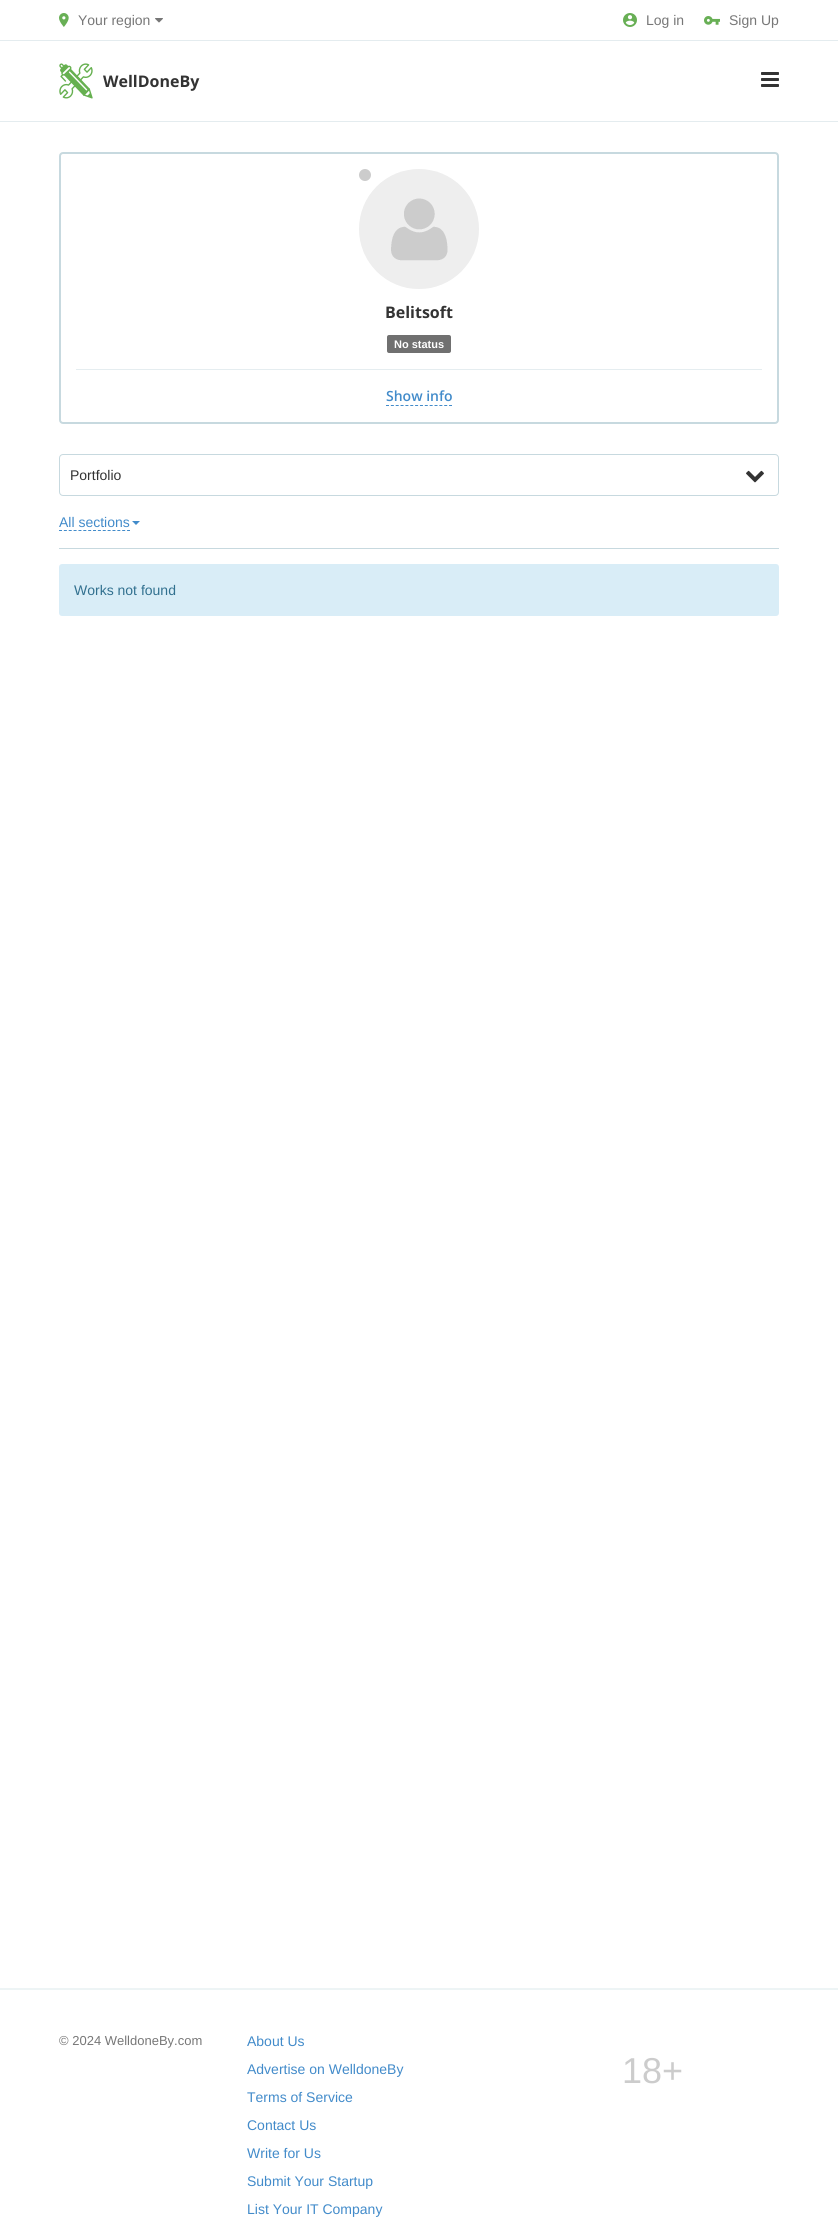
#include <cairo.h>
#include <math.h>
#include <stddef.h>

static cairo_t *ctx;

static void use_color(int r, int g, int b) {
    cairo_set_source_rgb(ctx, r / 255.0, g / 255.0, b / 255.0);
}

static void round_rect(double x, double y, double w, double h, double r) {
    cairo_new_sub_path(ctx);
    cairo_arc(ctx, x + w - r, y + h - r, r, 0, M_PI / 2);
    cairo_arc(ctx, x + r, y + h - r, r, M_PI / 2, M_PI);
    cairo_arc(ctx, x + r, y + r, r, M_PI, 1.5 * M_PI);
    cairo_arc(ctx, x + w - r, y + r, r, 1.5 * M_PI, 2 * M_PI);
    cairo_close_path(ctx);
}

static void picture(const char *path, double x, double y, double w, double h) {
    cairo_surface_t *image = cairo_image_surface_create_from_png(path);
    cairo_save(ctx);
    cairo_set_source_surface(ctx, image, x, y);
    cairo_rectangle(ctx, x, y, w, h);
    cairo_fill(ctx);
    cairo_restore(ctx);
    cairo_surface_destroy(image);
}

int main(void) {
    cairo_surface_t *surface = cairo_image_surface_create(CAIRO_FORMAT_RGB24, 838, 2223);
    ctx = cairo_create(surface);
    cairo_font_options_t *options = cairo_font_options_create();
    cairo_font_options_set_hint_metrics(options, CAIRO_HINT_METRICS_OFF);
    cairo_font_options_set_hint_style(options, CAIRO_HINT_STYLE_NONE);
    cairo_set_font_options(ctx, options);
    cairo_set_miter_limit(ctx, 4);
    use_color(255, 255, 255);
    cairo_paint(ctx);
    use_color(228, 236, 239);
    cairo_rectangle(ctx, 0, 40, 838, 1);
    cairo_fill(ctx);
    picture("img1.png", 59, 13, 10, 14);
    cairo_select_font_face(ctx, "Liberation Sans", CAIRO_FONT_SLANT_NORMAL, CAIRO_FONT_WEIGHT_NORMAL);
    cairo_set_font_size(ctx, 14);
    use_color(119, 119, 119);
    cairo_move_to(ctx, 78, 25);
    cairo_show_text(ctx, "Your region");
    picture("img2.png", 155, 18, 8, 5);
    picture("img3.png", 623, 13, 14, 14);
    cairo_move_to(ctx, 646, 25);
    cairo_show_text(ctx, "Log in");
    picture("img4.png", 704, 16, 16, 9);
    cairo_move_to(ctx, 729, 25);
    cairo_show_text(ctx, "Sign Up");
    use_color(228, 236, 239);
    cairo_rectangle(ctx, 0, 121, 838, 1);
    cairo_fill(ctx);
    picture("img5.png", 59, 63, 34, 36);
    cairo_select_font_face(ctx, "Open Sans", CAIRO_FONT_SLANT_NORMAL, CAIRO_FONT_WEIGHT_BOLD);
    cairo_set_font_size(ctx, 16);
    use_color(51, 51, 51);
    cairo_move_to(ctx, 103, 87);
    cairo_show_text(ctx, "WellDoneBy");
    picture("img6.png", 761, 72, 18, 15);
    round_rect(60, 153, 718, 270, 3);
    use_color(199, 217, 223);
    cairo_stroke(ctx);
    use_color(229, 237, 240);
    cairo_rectangle(ctx, 76, 369, 686, 1);
    cairo_fill(ctx);
    picture("img7.png", 359, 169, 120, 120);
    use_color(204, 204, 204);
    cairo_arc(ctx, 365, 175, 6, 0, 2 * M_PI);
    cairo_fill(ctx);
    use_color(51, 51, 51);
    cairo_move_to(ctx, 385, 318);
    cairo_show_text(ctx, "Belitsoft");
    use_color(112, 112, 112);
    round_rect(387, 335, 64, 18, 2);
    cairo_fill(ctx);
    cairo_select_font_face(ctx, "Liberation Sans", CAIRO_FONT_SLANT_NORMAL, CAIRO_FONT_WEIGHT_BOLD);
    cairo_set_font_size(ctx, 11);
    use_color(255, 255, 255);
    cairo_move_to(ctx, 394, 348);
    cairo_show_text(ctx, "No status");
    cairo_select_font_face(ctx, "Open Sans SemiBold", CAIRO_FONT_SLANT_NORMAL, CAIRO_FONT_WEIGHT_NORMAL);
    cairo_set_font_size(ctx, 14);
    use_color(66, 139, 202);
    cairo_move_to(ctx, 386, 401);
    cairo_show_text(ctx, "Show info");
    cairo_new_path(ctx);
    cairo_move_to(ctx, 386, 405.5);
    cairo_line_to(ctx, 452, 405.5);
    cairo_set_line_width(ctx, 1);
    cairo_set_dash(ctx, (double[]){3, 1.85}, 2, 0);
    cairo_stroke(ctx);
    round_rect(59.5, 454.5, 719, 41, 3.5);
    use_color(199, 217, 223);
    cairo_set_dash(ctx, NULL, 0, 0);
    cairo_stroke(ctx);
    cairo_select_font_face(ctx, "Liberation Sans", CAIRO_FONT_SLANT_NORMAL, CAIRO_FONT_WEIGHT_NORMAL);
    use_color(51, 51, 51);
    cairo_move_to(ctx, 70, 480);
    cairo_show_text(ctx, "Portfolio");
    picture("img8.png", 746, 470, 18, 13);
    use_color(199, 217, 223);
    cairo_rectangle(ctx, 59, 548, 720, 1);
    cairo_fill(ctx);
    use_color(66, 139, 202);
    cairo_move_to(ctx, 59, 527);
    cairo_show_text(ctx, "All sections");
    cairo_new_path(ctx);
    cairo_move_to(ctx, 59, 530.5);
    cairo_line_to(ctx, 130, 530.5);
    cairo_set_dash(ctx, (double[]){3, 1.86}, 2, 0);
    cairo_stroke(ctx);
    cairo_new_path(ctx);
    cairo_move_to(ctx, 132, 521);
    cairo_line_to(ctx, 140, 521);
    cairo_line_to(ctx, 136, 525);
    cairo_close_path(ctx);
    cairo_fill(ctx);
    use_color(217, 237, 247);
    round_rect(59, 564, 720, 52, 3);
    cairo_fill(ctx);
    use_color(49, 112, 143);
    cairo_move_to(ctx, 74, 595);
    cairo_show_text(ctx, "Works not found");
    use_color(237, 244, 245);
    cairo_rectangle(ctx, 0, 1988, 838, 2);
    cairo_fill(ctx);
    cairo_set_font_size(ctx, 13);
    use_color(119, 119, 119);
    cairo_move_to(ctx, 59, 2045);
    cairo_show_text(ctx, "© 2024 WelldoneBy.com");
    cairo_set_font_size(ctx, 14);
    use_color(66, 139, 202);
    cairo_move_to(ctx, 247, 2046);
    cairo_show_text(ctx, "About Us");
    cairo_move_to(ctx, 247, 2074);
    cairo_show_text(ctx, "Advertise on WelldoneBy");
    cairo_move_to(ctx, 247, 2102);
    cairo_show_text(ctx, "Terms of Service");
    cairo_move_to(ctx, 247, 2130);
    cairo_show_text(ctx, "Contact Us");
    cairo_move_to(ctx, 247, 2158);
    cairo_show_text(ctx, "Write for Us");
    cairo_move_to(ctx, 247, 2186);
    cairo_show_text(ctx, "Submit Your Startup");
    cairo_move_to(ctx, 247, 2214);
    cairo_show_text(ctx, "List Your IT Company");
    cairo_set_font_size(ctx, 36);
    use_color(204, 204, 204);
    cairo_move_to(ctx, 622, 2083);
    cairo_show_text(ctx, "18+");
    cairo_surface_write_to_png(surface, "result.png");
    cairo_font_options_destroy(options);
    cairo_destroy(ctx);
    cairo_surface_destroy(surface);
    return 0;
}
